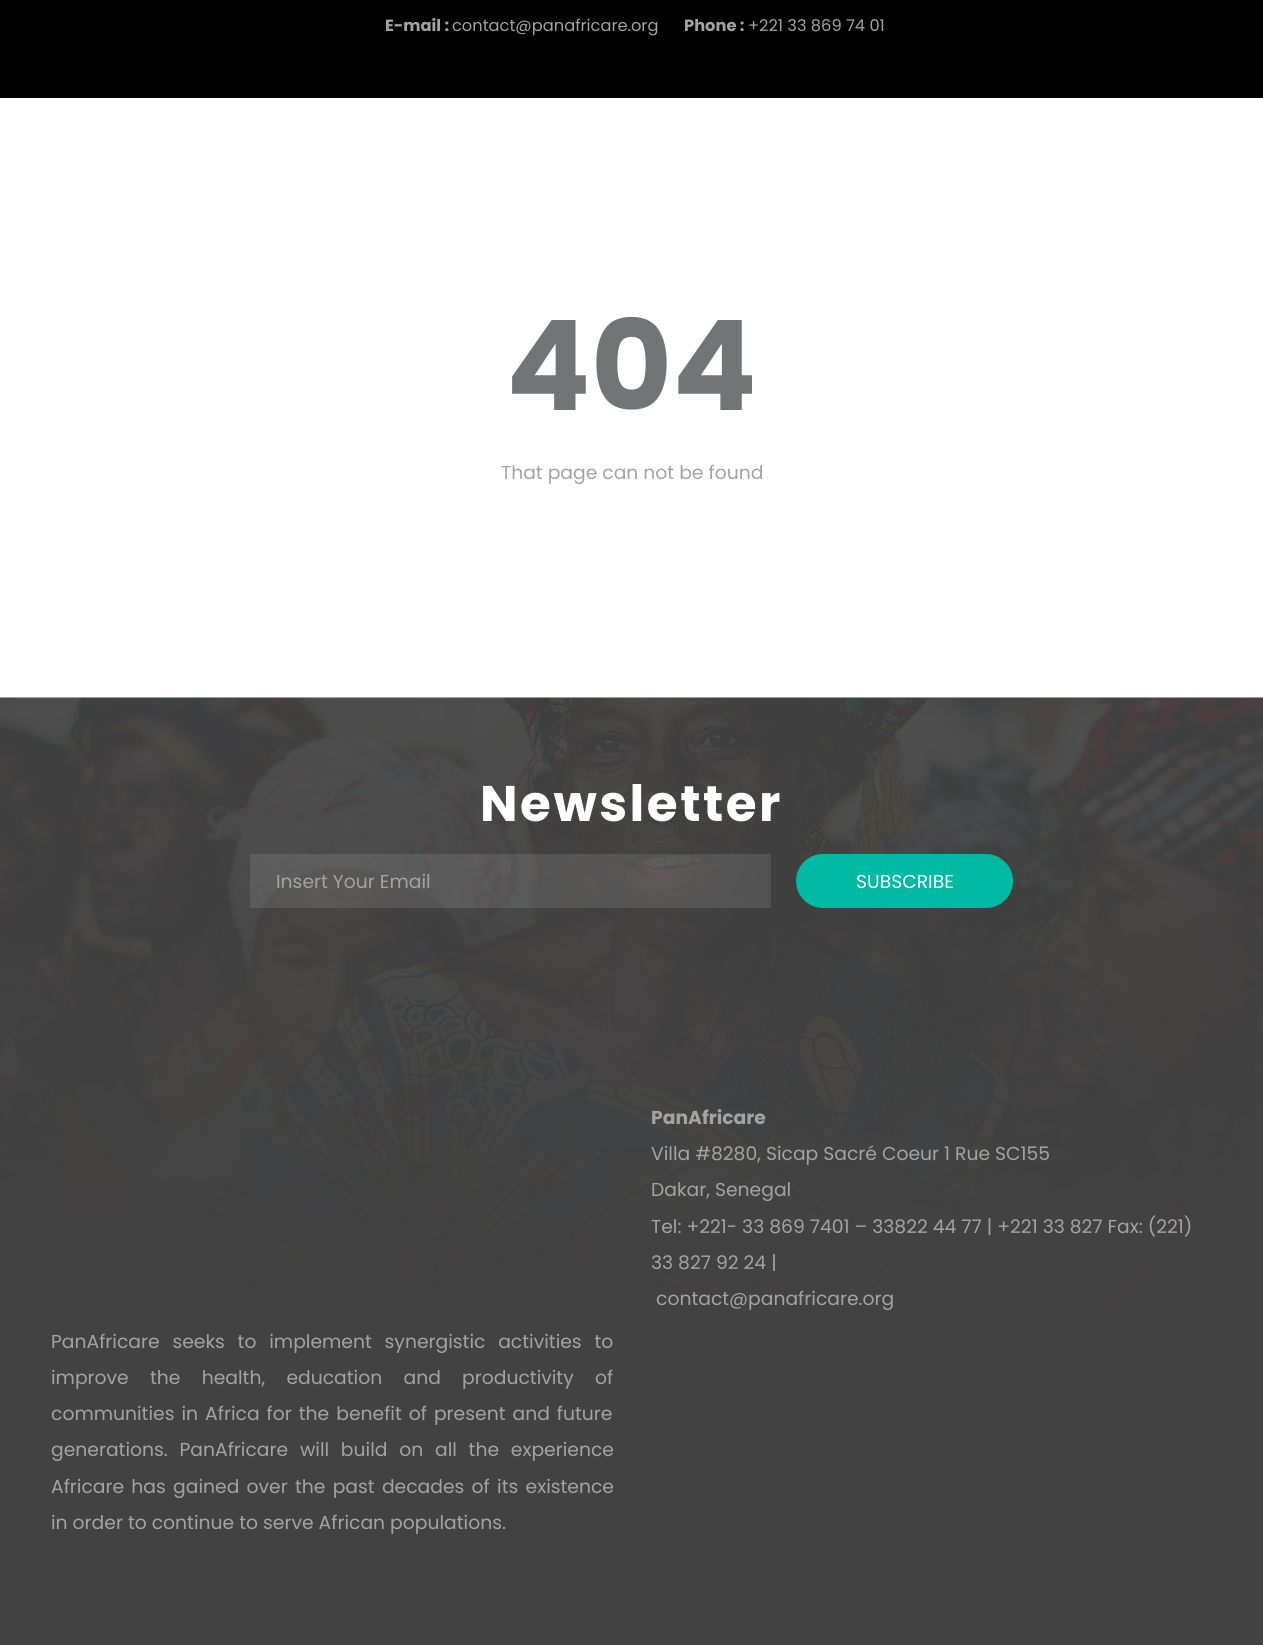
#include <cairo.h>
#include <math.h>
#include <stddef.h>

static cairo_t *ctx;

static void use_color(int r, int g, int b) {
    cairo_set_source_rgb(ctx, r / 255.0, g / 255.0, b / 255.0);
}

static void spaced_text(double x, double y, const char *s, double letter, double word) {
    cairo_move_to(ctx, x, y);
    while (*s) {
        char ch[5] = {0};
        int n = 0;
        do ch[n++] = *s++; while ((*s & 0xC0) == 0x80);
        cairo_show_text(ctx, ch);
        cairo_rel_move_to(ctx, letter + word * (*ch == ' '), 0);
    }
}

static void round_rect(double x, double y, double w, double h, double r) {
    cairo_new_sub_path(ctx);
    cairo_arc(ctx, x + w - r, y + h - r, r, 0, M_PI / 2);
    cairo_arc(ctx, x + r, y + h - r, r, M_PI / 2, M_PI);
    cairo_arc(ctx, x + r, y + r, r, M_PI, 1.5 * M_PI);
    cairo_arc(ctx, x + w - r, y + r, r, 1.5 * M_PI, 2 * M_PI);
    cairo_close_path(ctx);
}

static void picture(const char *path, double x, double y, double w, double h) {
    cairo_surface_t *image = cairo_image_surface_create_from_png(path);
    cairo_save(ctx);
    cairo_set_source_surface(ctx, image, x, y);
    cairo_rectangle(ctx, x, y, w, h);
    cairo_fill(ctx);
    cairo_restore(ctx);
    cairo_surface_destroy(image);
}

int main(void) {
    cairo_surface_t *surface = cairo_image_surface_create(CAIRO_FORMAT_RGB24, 1263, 1645);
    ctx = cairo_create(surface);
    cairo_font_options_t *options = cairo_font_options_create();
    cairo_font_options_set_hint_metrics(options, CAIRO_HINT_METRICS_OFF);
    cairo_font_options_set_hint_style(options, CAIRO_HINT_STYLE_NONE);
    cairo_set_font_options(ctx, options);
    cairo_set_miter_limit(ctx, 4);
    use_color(255, 255, 255);
    cairo_paint(ctx);
    use_color(0, 0, 0);
    cairo_rectangle(ctx, 0, 0, 1263, 98);
    cairo_fill(ctx);
    cairo_select_font_face(ctx, "Poppins", CAIRO_FONT_SLANT_NORMAL, CAIRO_FONT_WEIGHT_BOLD);
    cairo_set_font_size(ctx, 16.25);
    use_color(163, 163, 163);
    cairo_move_to(ctx, 385, 31);
    cairo_show_text(ctx, "E-mail :");
    cairo_select_font_face(ctx, "Poppins", CAIRO_FONT_SLANT_NORMAL, CAIRO_FONT_WEIGHT_NORMAL);
    cairo_move_to(ctx, 452, 31);
    cairo_show_text(ctx, "contact@panafricare.org");
    cairo_select_font_face(ctx, "Poppins", CAIRO_FONT_SLANT_NORMAL, CAIRO_FONT_WEIGHT_BOLD);
    cairo_move_to(ctx, 684, 31);
    cairo_show_text(ctx, "Phone :");
    cairo_select_font_face(ctx, "Poppins", CAIRO_FONT_SLANT_NORMAL, CAIRO_FONT_WEIGHT_NORMAL);
    cairo_move_to(ctx, 748, 31);
    cairo_show_text(ctx, "+221 33 869 74 01");
    cairo_select_font_face(ctx, "Poppins", CAIRO_FONT_SLANT_NORMAL, CAIRO_FONT_WEIGHT_BOLD);
    cairo_set_font_size(ctx, 125);
    use_color(114, 116, 117);
    cairo_move_to(ctx, 506, 410);
    cairo_show_text(ctx, "404");
    cairo_select_font_face(ctx, "Poppins", CAIRO_FONT_SLANT_NORMAL, CAIRO_FONT_WEIGHT_NORMAL);
    cairo_set_font_size(ctx, 18.75);
    use_color(163, 163, 163);
    cairo_move_to(ctx, 501, 479);
    cairo_show_text(ctx, "That page can not be found");
    picture("img1.png", 0, 697, 1263, 948);
    cairo_select_font_face(ctx, "Poppins", CAIRO_FONT_SLANT_NORMAL, CAIRO_FONT_WEIGHT_BOLD);
    cairo_set_font_size(ctx, 50);
    use_color(255, 255, 255);
    spaced_text(480, 821, "Newsletter", 2.5, 0);
    cairo_set_source_rgba(ctx, 1, 1, 1, 0.1);
    cairo_rectangle(ctx, 250, 854, 521, 54);
    cairo_fill(ctx);
    cairo_select_font_face(ctx, "Poppins", CAIRO_FONT_SLANT_NORMAL, CAIRO_FONT_WEIGHT_NORMAL);
    cairo_set_font_size(ctx, 18.75);
    use_color(163, 163, 163);
    cairo_move_to(ctx, 276, 888);
    cairo_show_text(ctx, "Insert Your Email");
    use_color(0, 186, 163);
    round_rect(796, 854, 217, 54, 27);
    cairo_fill(ctx);
    use_color(255, 255, 255);
    cairo_move_to(ctx, 856, 888);
    cairo_show_text(ctx, "SUBSCRIBE");
    cairo_select_font_face(ctx, "Poppins", CAIRO_FONT_SLANT_NORMAL, CAIRO_FONT_WEIGHT_BOLD);
    use_color(163, 163, 163);
    cairo_move_to(ctx, 651, 1124);
    cairo_show_text(ctx, "PanAfricare");
    cairo_select_font_face(ctx, "Poppins", CAIRO_FONT_SLANT_NORMAL, CAIRO_FONT_WEIGHT_NORMAL);
    cairo_move_to(ctx, 651, 1160);
    cairo_show_text(ctx, "Villa #8280, Sicap Sacré Coeur 1 Rue SC155");
    cairo_move_to(ctx, 651, 1196);
    cairo_show_text(ctx, "Dakar, Senegal");
    cairo_move_to(ctx, 651, 1233);
    cairo_show_text(ctx, "Tel: +221- 33 869 7401 – 33822 44 77 | +221 33 827 Fax: (221)");
    cairo_move_to(ctx, 651, 1269);
    cairo_show_text(ctx, "33 827 92 24 |");
    cairo_move_to(ctx, 656, 1305);
    cairo_show_text(ctx, "contact@panafricare.org");
    spaced_text(51, 1348, "PanAfricare seeks to implement synergistic activities to", 0, 7.75);
    spaced_text(51, 1384, "improve the health, education and productivity of", 0, 16.25);
    spaced_text(51, 1420, "communities in Africa for the benefit of present and future", 0, 2);
    spaced_text(51, 1456, "generations. PanAfricare will build on all the experience", 0, 6.75);
    spaced_text(51, 1493, "Africare has gained over the past decades of its existence", 0, 2.25);
    cairo_move_to(ctx, 51, 1529);
    cairo_show_text(ctx, "in order to continue to serve African populations.");
    cairo_surface_write_to_png(surface, "result.png");
    cairo_font_options_destroy(options);
    cairo_destroy(ctx);
    cairo_surface_destroy(surface);
    return 0;
}
